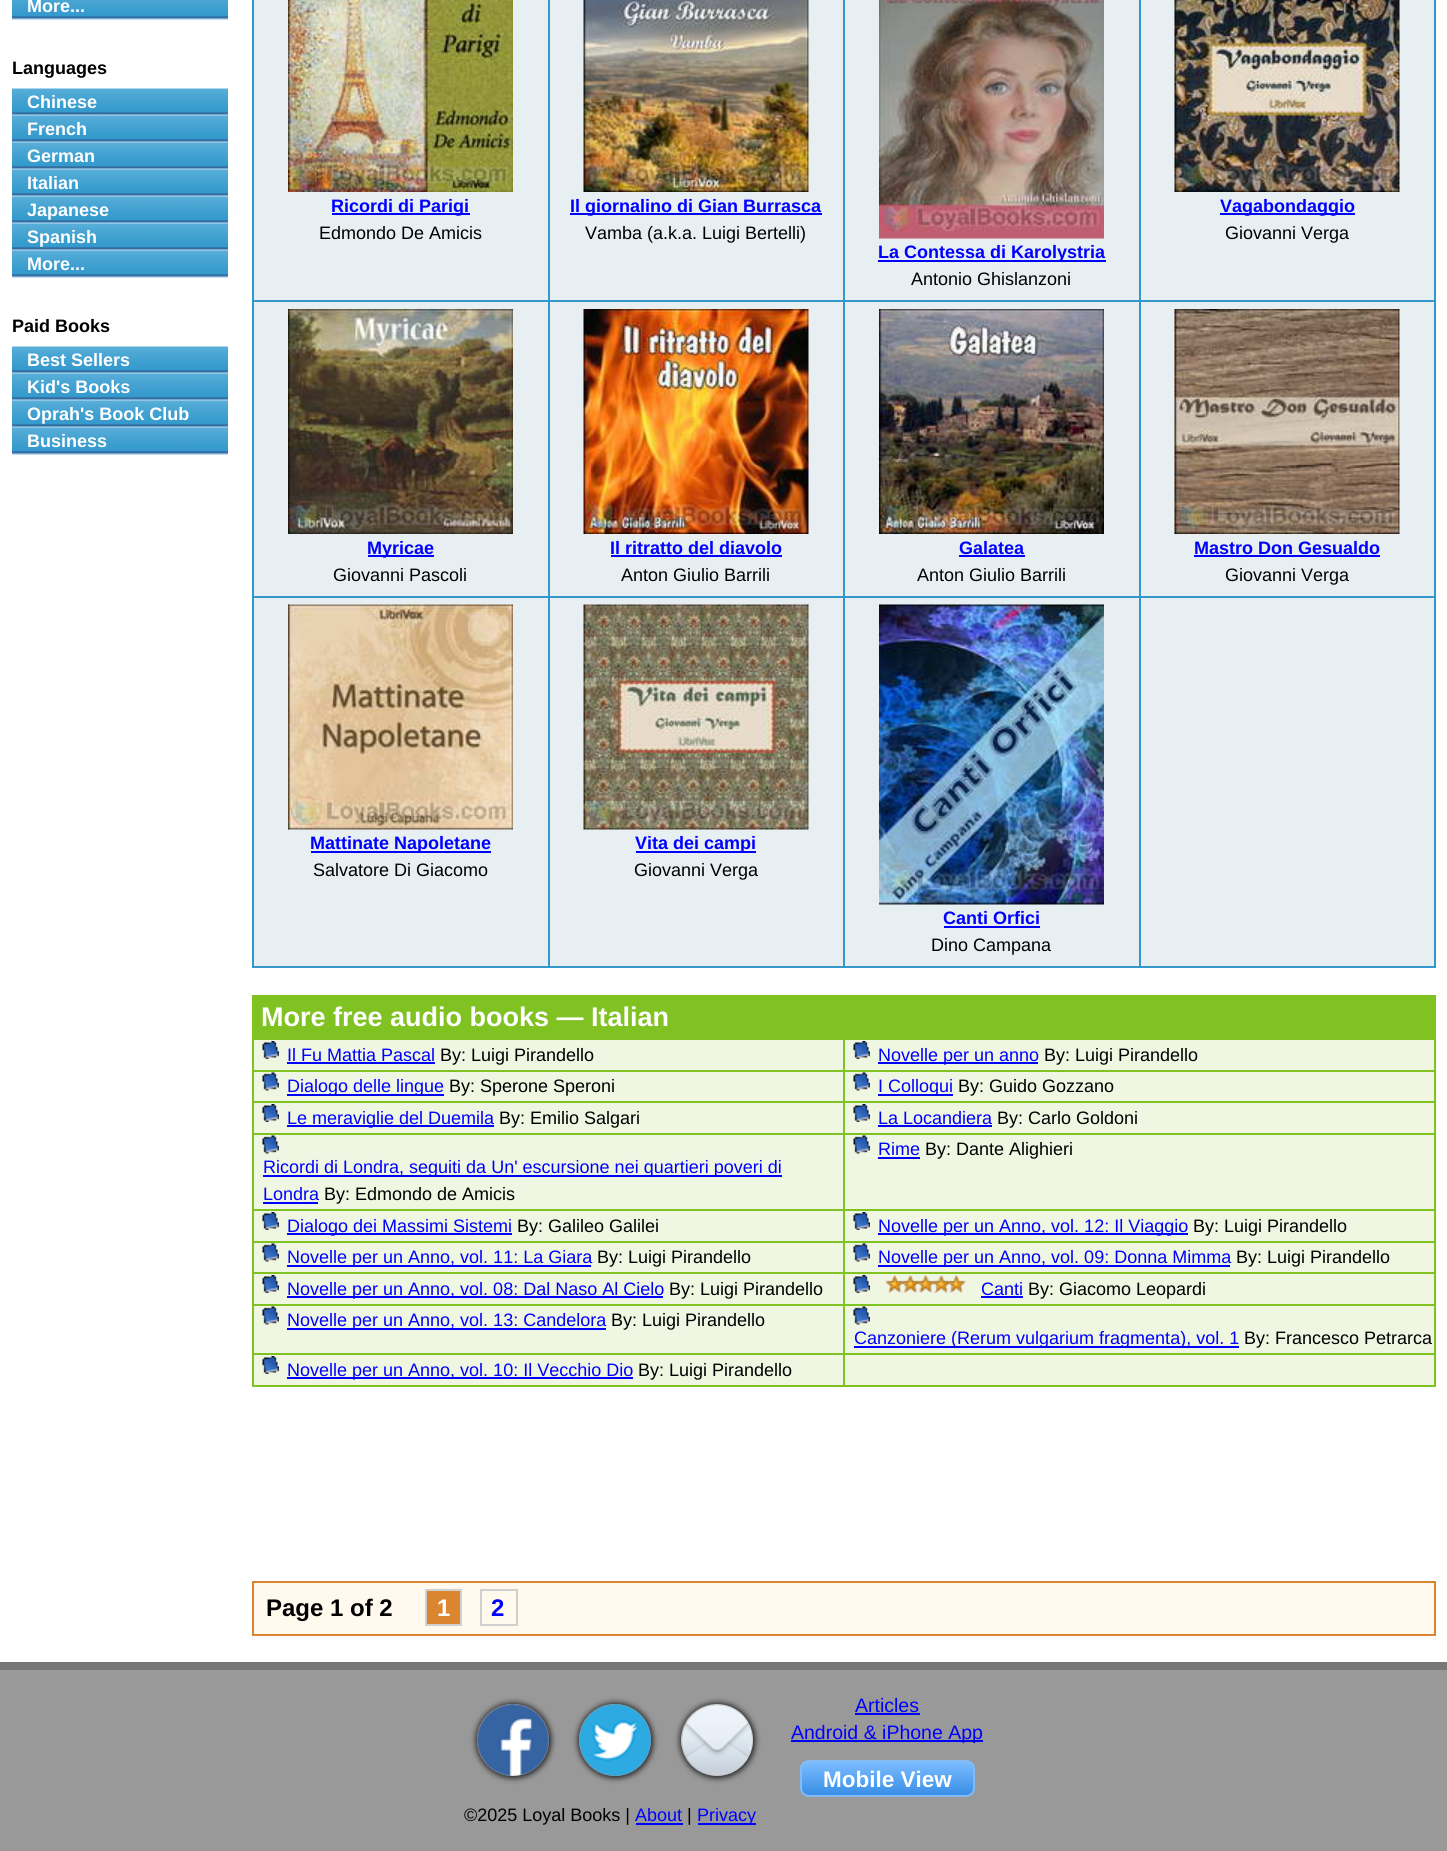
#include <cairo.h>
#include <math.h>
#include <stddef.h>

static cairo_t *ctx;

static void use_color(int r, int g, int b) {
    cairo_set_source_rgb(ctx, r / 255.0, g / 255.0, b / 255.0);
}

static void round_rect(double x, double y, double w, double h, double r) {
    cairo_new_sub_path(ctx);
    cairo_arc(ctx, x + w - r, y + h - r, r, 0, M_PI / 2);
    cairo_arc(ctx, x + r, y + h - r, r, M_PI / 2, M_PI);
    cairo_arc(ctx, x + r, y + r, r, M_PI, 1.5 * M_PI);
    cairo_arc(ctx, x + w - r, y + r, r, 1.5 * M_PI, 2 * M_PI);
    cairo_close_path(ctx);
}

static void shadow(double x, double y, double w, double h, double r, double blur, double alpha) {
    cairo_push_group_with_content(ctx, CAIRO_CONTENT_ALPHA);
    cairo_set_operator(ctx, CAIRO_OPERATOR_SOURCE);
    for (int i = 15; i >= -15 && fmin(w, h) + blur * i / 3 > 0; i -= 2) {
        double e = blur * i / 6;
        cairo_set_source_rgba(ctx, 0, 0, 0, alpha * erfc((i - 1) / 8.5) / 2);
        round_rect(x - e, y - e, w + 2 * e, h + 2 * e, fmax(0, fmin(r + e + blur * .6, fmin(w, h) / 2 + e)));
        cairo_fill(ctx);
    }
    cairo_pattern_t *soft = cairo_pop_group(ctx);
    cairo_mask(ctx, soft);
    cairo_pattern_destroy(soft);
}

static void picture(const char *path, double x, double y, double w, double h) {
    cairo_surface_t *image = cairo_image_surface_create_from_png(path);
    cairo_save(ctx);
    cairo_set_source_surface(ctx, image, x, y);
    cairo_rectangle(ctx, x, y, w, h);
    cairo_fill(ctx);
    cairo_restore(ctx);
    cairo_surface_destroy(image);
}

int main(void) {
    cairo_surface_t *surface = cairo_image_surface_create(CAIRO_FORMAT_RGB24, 1447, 1851);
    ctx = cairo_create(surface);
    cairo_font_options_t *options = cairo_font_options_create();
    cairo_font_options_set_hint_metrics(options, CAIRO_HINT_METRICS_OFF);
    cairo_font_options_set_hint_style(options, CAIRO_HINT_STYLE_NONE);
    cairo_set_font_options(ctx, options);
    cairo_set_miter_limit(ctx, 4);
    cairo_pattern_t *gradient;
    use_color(255, 255, 255);
    cairo_paint(ctx);
    picture("img1.png", 12, 0, 216, 20);
    cairo_select_font_face(ctx, "Liberation Sans", CAIRO_FONT_SLANT_NORMAL, CAIRO_FONT_WEIGHT_BOLD);
    cairo_set_font_size(ctx, 18);
    use_color(255, 255, 255);
    cairo_move_to(ctx, 27, 12);
    cairo_show_text(ctx, "More...");
    use_color(0, 0, 0);
    cairo_move_to(ctx, 12, 74);
    cairo_show_text(ctx, "Languages");
    picture("img2.png", 12, 88, 216, 28);
    use_color(255, 255, 255);
    cairo_move_to(ctx, 27, 108);
    cairo_show_text(ctx, "Chinese");
    picture("img3.png", 12, 115, 216, 28);
    cairo_move_to(ctx, 27, 135);
    cairo_show_text(ctx, "French");
    picture("img3.png", 12, 142, 216, 28);
    cairo_move_to(ctx, 27, 162);
    cairo_show_text(ctx, "German");
    picture("img3.png", 12, 169, 216, 28);
    cairo_move_to(ctx, 27, 189);
    cairo_show_text(ctx, "Italian");
    picture("img4.png", 12, 196, 216, 28);
    cairo_move_to(ctx, 27, 216);
    cairo_show_text(ctx, "Japanese");
    picture("img3.png", 12, 223, 216, 28);
    cairo_move_to(ctx, 27, 243);
    cairo_show_text(ctx, "Spanish");
    picture("img5.png", 12, 250, 216, 28);
    cairo_move_to(ctx, 27, 270);
    cairo_show_text(ctx, "More...");
    use_color(0, 0, 0);
    cairo_move_to(ctx, 12, 332);
    cairo_show_text(ctx, "Paid Books");
    picture("img6.png", 12, 346, 216, 28);
    use_color(255, 255, 255);
    cairo_move_to(ctx, 27, 366);
    cairo_show_text(ctx, "Best Sellers");
    picture("img5.png", 12, 373, 216, 28);
    cairo_move_to(ctx, 27, 393);
    cairo_show_text(ctx, "Kid's Books");
    picture("img3.png", 12, 400, 216, 28);
    cairo_move_to(ctx, 27, 420);
    cairo_show_text(ctx, "Oprah's Book Club");
    picture("img3.png", 12, 427, 216, 28);
    cairo_move_to(ctx, 27, 447);
    cairo_show_text(ctx, "Business");
    use_color(231, 239, 243);
    cairo_rectangle(ctx, 254, 0, 1180, 966);
    cairo_fill(ctx);
    use_color(51, 153, 204);
    cairo_rectangle(ctx, 1434, 0, 2, 968);
    cairo_fill(ctx);
    cairo_rectangle(ctx, 252, 966, 1184, 2);
    cairo_fill(ctx);
    cairo_rectangle(ctx, 252, 0, 2, 968);
    cairo_fill(ctx);
    picture("img7.png", 288, 0, 225, 192);
    use_color(0, 0, 255);
    cairo_rectangle(ctx, 332, 213, 138, 2);
    cairo_fill(ctx);
    cairo_move_to(ctx, 331, 212);
    cairo_show_text(ctx, "Ricordi di Parigi");
    cairo_select_font_face(ctx, "Liberation Sans", CAIRO_FONT_SLANT_NORMAL, CAIRO_FONT_WEIGHT_NORMAL);
    use_color(0, 0, 0);
    cairo_move_to(ctx, 319, 239);
    cairo_show_text(ctx, "Edmondo De Amicis");
    use_color(51, 153, 204);
    cairo_rectangle(ctx, 1139, 300, 297, 2);
    cairo_fill(ctx);
    cairo_rectangle(ctx, 1139, 596, 297, 2);
    cairo_fill(ctx);
    cairo_rectangle(ctx, 1139, 596, 2, 372);
    cairo_fill(ctx);
    cairo_rectangle(ctx, 843, 596, 297, 2);
    cairo_fill(ctx);
    cairo_rectangle(ctx, 1139, 300, 2, 297);
    cairo_fill(ctx);
    cairo_rectangle(ctx, 843, 300, 297, 2);
    cairo_fill(ctx);
    cairo_rectangle(ctx, 843, 596, 2, 372);
    cairo_fill(ctx);
    cairo_rectangle(ctx, 548, 596, 297, 2);
    cairo_fill(ctx);
    cairo_rectangle(ctx, 843, 300, 2, 297);
    cairo_fill(ctx);
    cairo_rectangle(ctx, 548, 300, 297, 2);
    cairo_fill(ctx);
    cairo_rectangle(ctx, 548, 596, 2, 372);
    cairo_fill(ctx);
    cairo_rectangle(ctx, 252, 596, 297, 2);
    cairo_fill(ctx);
    cairo_rectangle(ctx, 548, 300, 2, 297);
    cairo_fill(ctx);
    cairo_rectangle(ctx, 252, 300, 297, 2);
    cairo_fill(ctx);
    cairo_rectangle(ctx, 548, 0, 2, 302);
    cairo_fill(ctx);
    picture("img8.png", 583, 0, 226, 192);
    use_color(0, 0, 255);
    cairo_rectangle(ctx, 570, 213, 252, 2);
    cairo_fill(ctx);
    cairo_select_font_face(ctx, "Liberation Sans", CAIRO_FONT_SLANT_NORMAL, CAIRO_FONT_WEIGHT_BOLD);
    cairo_move_to(ctx, 570, 212);
    cairo_show_text(ctx, "Il giornalino di Gian Burrasca");
    cairo_select_font_face(ctx, "Liberation Sans", CAIRO_FONT_SLANT_NORMAL, CAIRO_FONT_WEIGHT_NORMAL);
    use_color(0, 0, 0);
    cairo_move_to(ctx, 585, 239);
    cairo_show_text(ctx, "Vamba (a.k.a. Luigi Bertelli)");
    use_color(51, 153, 204);
    cairo_rectangle(ctx, 1139, 0, 2, 302);
    cairo_fill(ctx);
    picture("img9.png", 1174, 0, 226, 192);
    use_color(0, 0, 255);
    cairo_rectangle(ctx, 1220, 213, 135, 2);
    cairo_fill(ctx);
    cairo_select_font_face(ctx, "Liberation Sans", CAIRO_FONT_SLANT_NORMAL, CAIRO_FONT_WEIGHT_BOLD);
    cairo_move_to(ctx, 1220, 212);
    cairo_show_text(ctx, "Vagabondaggio");
    cairo_select_font_face(ctx, "Liberation Sans", CAIRO_FONT_SLANT_NORMAL, CAIRO_FONT_WEIGHT_NORMAL);
    use_color(0, 0, 0);
    cairo_move_to(ctx, 1225, 239);
    cairo_show_text(ctx, "Giovanni Verga");
    use_color(51, 153, 204);
    cairo_rectangle(ctx, 843, 0, 2, 302);
    cairo_fill(ctx);
    picture("img10.png", 879, 0, 225, 239);
    use_color(0, 0, 255);
    cairo_rectangle(ctx, 878, 260, 228, 2);
    cairo_fill(ctx);
    cairo_select_font_face(ctx, "Liberation Sans", CAIRO_FONT_SLANT_NORMAL, CAIRO_FONT_WEIGHT_BOLD);
    cairo_move_to(ctx, 878, 258);
    cairo_show_text(ctx, "La Contessa di Karolystria");
    cairo_select_font_face(ctx, "Liberation Sans", CAIRO_FONT_SLANT_NORMAL, CAIRO_FONT_WEIGHT_NORMAL);
    use_color(0, 0, 0);
    cairo_move_to(ctx, 911, 285);
    cairo_show_text(ctx, "Antonio Ghislanzoni");
    picture("img11.png", 288, 309, 225, 225);
    use_color(0, 0, 255);
    cairo_rectangle(ctx, 368, 555, 66, 2);
    cairo_fill(ctx);
    cairo_select_font_face(ctx, "Liberation Sans", CAIRO_FONT_SLANT_NORMAL, CAIRO_FONT_WEIGHT_BOLD);
    cairo_move_to(ctx, 367, 554);
    cairo_show_text(ctx, "Myricae");
    cairo_select_font_face(ctx, "Liberation Sans", CAIRO_FONT_SLANT_NORMAL, CAIRO_FONT_WEIGHT_NORMAL);
    use_color(0, 0, 0);
    cairo_move_to(ctx, 333, 581);
    cairo_show_text(ctx, "Giovanni Pascoli");
    picture("img12.png", 583, 309, 226, 225);
    cairo_select_font_face(ctx, "Liberation Sans", CAIRO_FONT_SLANT_NORMAL, CAIRO_FONT_WEIGHT_BOLD);
    use_color(0, 0, 255);
    cairo_move_to(ctx, 610, 554);
    cairo_show_text(ctx, "Il ritratto del diavolo");
    cairo_rectangle(ctx, 611, 555, 171, 2);
    cairo_fill(ctx);
    cairo_select_font_face(ctx, "Liberation Sans", CAIRO_FONT_SLANT_NORMAL, CAIRO_FONT_WEIGHT_NORMAL);
    use_color(0, 0, 0);
    cairo_move_to(ctx, 621, 581);
    cairo_show_text(ctx, "Anton Giulio Barrili");
    picture("img13.png", 879, 309, 225, 225);
    cairo_select_font_face(ctx, "Liberation Sans", CAIRO_FONT_SLANT_NORMAL, CAIRO_FONT_WEIGHT_BOLD);
    use_color(0, 0, 255);
    cairo_move_to(ctx, 959, 554);
    cairo_show_text(ctx, "Galatea");
    cairo_rectangle(ctx, 959, 555, 66, 2);
    cairo_fill(ctx);
    cairo_select_font_face(ctx, "Liberation Sans", CAIRO_FONT_SLANT_NORMAL, CAIRO_FONT_WEIGHT_NORMAL);
    use_color(0, 0, 0);
    cairo_move_to(ctx, 917, 581);
    cairo_show_text(ctx, "Anton Giulio Barrili");
    picture("img14.png", 1174, 309, 226, 225);
    cairo_select_font_face(ctx, "Liberation Sans", CAIRO_FONT_SLANT_NORMAL, CAIRO_FONT_WEIGHT_BOLD);
    use_color(0, 0, 255);
    cairo_move_to(ctx, 1194, 554);
    cairo_show_text(ctx, "Mastro Don Gesualdo");
    cairo_rectangle(ctx, 1194, 555, 186, 2);
    cairo_fill(ctx);
    cairo_select_font_face(ctx, "Liberation Sans", CAIRO_FONT_SLANT_NORMAL, CAIRO_FONT_WEIGHT_NORMAL);
    use_color(0, 0, 0);
    cairo_move_to(ctx, 1225, 581);
    cairo_show_text(ctx, "Giovanni Verga");
    picture("img15.png", 288, 604, 225, 226);
    use_color(0, 0, 255);
    cairo_rectangle(ctx, 311, 851, 180, 2);
    cairo_fill(ctx);
    cairo_select_font_face(ctx, "Liberation Sans", CAIRO_FONT_SLANT_NORMAL, CAIRO_FONT_WEIGHT_BOLD);
    cairo_move_to(ctx, 310, 849);
    cairo_show_text(ctx, "Mattinate Napoletane");
    cairo_select_font_face(ctx, "Liberation Sans", CAIRO_FONT_SLANT_NORMAL, CAIRO_FONT_WEIGHT_NORMAL);
    use_color(0, 0, 0);
    cairo_move_to(ctx, 313, 876);
    cairo_show_text(ctx, "Salvatore Di Giacomo");
    picture("img16.png", 583, 604, 226, 226);
    use_color(0, 0, 255);
    cairo_rectangle(ctx, 636, 851, 120, 2);
    cairo_fill(ctx);
    cairo_select_font_face(ctx, "Liberation Sans", CAIRO_FONT_SLANT_NORMAL, CAIRO_FONT_WEIGHT_BOLD);
    cairo_move_to(ctx, 635, 849);
    cairo_show_text(ctx, "Vita dei campi");
    cairo_select_font_face(ctx, "Liberation Sans", CAIRO_FONT_SLANT_NORMAL, CAIRO_FONT_WEIGHT_NORMAL);
    use_color(0, 0, 0);
    cairo_move_to(ctx, 634, 876);
    cairo_show_text(ctx, "Giovanni Verga");
    picture("img17.png", 879, 604, 225, 301);
    cairo_select_font_face(ctx, "Liberation Sans", CAIRO_FONT_SLANT_NORMAL, CAIRO_FONT_WEIGHT_BOLD);
    use_color(0, 0, 255);
    cairo_move_to(ctx, 943, 924);
    cairo_show_text(ctx, "Canti Orfici");
    cairo_rectangle(ctx, 944, 926, 96, 2);
    cairo_fill(ctx);
    cairo_select_font_face(ctx, "Liberation Sans", CAIRO_FONT_SLANT_NORMAL, CAIRO_FONT_WEIGHT_NORMAL);
    use_color(0, 0, 0);
    cairo_move_to(ctx, 931, 951);
    cairo_show_text(ctx, "Dino Campana");
    use_color(239, 246, 226);
    cairo_rectangle(ctx, 254, 1040, 1180, 345);
    cairo_fill(ctx);
    use_color(128, 194, 34);
    cairo_rectangle(ctx, 252, 995, 1184, 2);
    cairo_fill(ctx);
    cairo_rectangle(ctx, 1434, 995, 2, 391);
    cairo_fill(ctx);
    cairo_rectangle(ctx, 252, 1385, 1184, 2);
    cairo_fill(ctx);
    cairo_rectangle(ctx, 252, 995, 2, 391);
    cairo_fill(ctx);
    cairo_rectangle(ctx, 254, 997, 1180, 43);
    cairo_fill(ctx);
    cairo_select_font_face(ctx, "Liberation Sans", CAIRO_FONT_SLANT_NORMAL, CAIRO_FONT_WEIGHT_BOLD);
    cairo_set_font_size(ctx, 27);
    use_color(255, 255, 255);
    cairo_move_to(ctx, 261, 1026);
    cairo_show_text(ctx, "More free audio books — Italian");
    picture("img18.png", 262, 1041, 17, 18);
    cairo_select_font_face(ctx, "Liberation Sans", CAIRO_FONT_SLANT_NORMAL, CAIRO_FONT_WEIGHT_NORMAL);
    cairo_set_font_size(ctx, 18);
    use_color(0, 0, 255);
    cairo_move_to(ctx, 287, 1061);
    cairo_show_text(ctx, "Il Fu Mattia Pascal");
    cairo_rectangle(ctx, 287, 1062, 148, 2);
    cairo_fill(ctx);
    use_color(0, 0, 0);
    cairo_move_to(ctx, 440, 1061);
    cairo_show_text(ctx, "By: Luigi Pirandello");
    use_color(128, 194, 34);
    cairo_rectangle(ctx, 843, 1070, 593, 2);
    cairo_fill(ctx);
    cairo_rectangle(ctx, 843, 1101, 593, 2);
    cairo_fill(ctx);
    cairo_rectangle(ctx, 843, 1133, 593, 2);
    cairo_fill(ctx);
    cairo_rectangle(ctx, 843, 1209, 593, 2);
    cairo_fill(ctx);
    cairo_rectangle(ctx, 843, 1241, 593, 2);
    cairo_fill(ctx);
    cairo_rectangle(ctx, 843, 1272, 593, 2);
    cairo_fill(ctx);
    cairo_rectangle(ctx, 843, 1304, 593, 2);
    cairo_fill(ctx);
    cairo_rectangle(ctx, 843, 1353, 593, 2);
    cairo_fill(ctx);
    cairo_rectangle(ctx, 843, 1353, 2, 33);
    cairo_fill(ctx);
    cairo_rectangle(ctx, 252, 1353, 593, 2);
    cairo_fill(ctx);
    cairo_rectangle(ctx, 843, 1304, 2, 51);
    cairo_fill(ctx);
    cairo_rectangle(ctx, 252, 1304, 593, 2);
    cairo_fill(ctx);
    cairo_rectangle(ctx, 843, 1272, 2, 33);
    cairo_fill(ctx);
    cairo_rectangle(ctx, 252, 1272, 593, 2);
    cairo_fill(ctx);
    cairo_rectangle(ctx, 843, 1241, 2, 33);
    cairo_fill(ctx);
    cairo_rectangle(ctx, 252, 1241, 593, 2);
    cairo_fill(ctx);
    cairo_rectangle(ctx, 843, 1209, 2, 33);
    cairo_fill(ctx);
    cairo_rectangle(ctx, 252, 1209, 593, 2);
    cairo_fill(ctx);
    cairo_rectangle(ctx, 843, 1133, 2, 78);
    cairo_fill(ctx);
    cairo_rectangle(ctx, 252, 1133, 593, 2);
    cairo_fill(ctx);
    cairo_rectangle(ctx, 843, 1101, 2, 33);
    cairo_fill(ctx);
    cairo_rectangle(ctx, 252, 1101, 593, 2);
    cairo_fill(ctx);
    cairo_rectangle(ctx, 843, 1070, 2, 33);
    cairo_fill(ctx);
    cairo_rectangle(ctx, 252, 1070, 593, 2);
    cairo_fill(ctx);
    cairo_rectangle(ctx, 843, 1038, 2, 33);
    cairo_fill(ctx);
    picture("img19.png", 853, 1041, 17, 18);
    use_color(0, 0, 255);
    cairo_rectangle(ctx, 878, 1062, 160, 2);
    cairo_fill(ctx);
    cairo_move_to(ctx, 878, 1061);
    cairo_show_text(ctx, "Novelle per un anno");
    use_color(0, 0, 0);
    cairo_move_to(ctx, 1044, 1061);
    cairo_show_text(ctx, "By: Luigi Pirandello");
    picture("img20.png", 262, 1072, 17, 19);
    use_color(0, 0, 255);
    cairo_rectangle(ctx, 287, 1094, 157, 2);
    cairo_fill(ctx);
    cairo_move_to(ctx, 287, 1092);
    cairo_show_text(ctx, "Dialogo delle lingue");
    use_color(0, 0, 0);
    cairo_move_to(ctx, 449, 1092);
    cairo_show_text(ctx, "By: Sperone Speroni");
    picture("img21.png", 853, 1072, 17, 19);
    use_color(0, 0, 255);
    cairo_rectangle(ctx, 878, 1094, 75, 2);
    cairo_fill(ctx);
    cairo_move_to(ctx, 878, 1092);
    cairo_show_text(ctx, "I Colloqui");
    use_color(0, 0, 0);
    cairo_move_to(ctx, 958, 1092);
    cairo_show_text(ctx, "By: Guido Gozzano");
    picture("img18.png", 262, 1104, 17, 18);
    use_color(0, 0, 255);
    cairo_rectangle(ctx, 287, 1125, 207, 2);
    cairo_fill(ctx);
    cairo_move_to(ctx, 287, 1124);
    cairo_show_text(ctx, "Le meraviglie del Duemila");
    use_color(0, 0, 0);
    cairo_move_to(ctx, 499, 1124);
    cairo_show_text(ctx, "By: Emilio Salgari");
    picture("img19.png", 853, 1104, 17, 18);
    use_color(0, 0, 255);
    cairo_move_to(ctx, 878, 1124);
    cairo_show_text(ctx, "La Locandiera");
    cairo_rectangle(ctx, 878, 1125, 114, 2);
    cairo_fill(ctx);
    use_color(0, 0, 0);
    cairo_move_to(ctx, 997, 1124);
    cairo_show_text(ctx, "By: Carlo Goldoni");
    picture("img21.png", 853, 1135, 17, 19);
    use_color(0, 0, 255);
    cairo_move_to(ctx, 878, 1155);
    cairo_show_text(ctx, "Rime");
    cairo_rectangle(ctx, 878, 1157, 42, 2);
    cairo_fill(ctx);
    use_color(0, 0, 0);
    cairo_move_to(ctx, 925, 1155);
    cairo_show_text(ctx, "By: Dante Alighieri");
    picture("img20.png", 262, 1135, 17, 19);
    use_color(0, 0, 255);
    cairo_rectangle(ctx, 263, 1175, 519, 2);
    cairo_fill(ctx);
    cairo_move_to(ctx, 263, 1173);
    cairo_show_text(ctx, "Ricordi di Londra, seguiti da Un' escursione nei quartieri poveri di");
    cairo_move_to(ctx, 263, 1200);
    cairo_show_text(ctx, "Londra");
    cairo_rectangle(ctx, 263, 1202, 55, 2);
    cairo_fill(ctx);
    use_color(0, 0, 0);
    cairo_move_to(ctx, 324, 1200);
    cairo_show_text(ctx, "By: Edmondo de Amicis");
    picture("img18.png", 262, 1212, 17, 18);
    use_color(0, 0, 255);
    cairo_rectangle(ctx, 287, 1233, 225, 2);
    cairo_fill(ctx);
    cairo_move_to(ctx, 287, 1232);
    cairo_show_text(ctx, "Dialogo dei Massimi Sistemi");
    use_color(0, 0, 0);
    cairo_move_to(ctx, 517, 1232);
    cairo_show_text(ctx, "By: Galileo Galilei");
    picture("img19.png", 853, 1212, 17, 18);
    use_color(0, 0, 255);
    cairo_rectangle(ctx, 878, 1233, 310, 2);
    cairo_fill(ctx);
    cairo_move_to(ctx, 878, 1232);
    cairo_show_text(ctx, "Novelle per un Anno, vol. 12: Il Viaggio");
    use_color(0, 0, 0);
    cairo_move_to(ctx, 1193, 1232);
    cairo_show_text(ctx, "By: Luigi Pirandello");
    picture("img20.png", 262, 1243, 17, 19);
    use_color(0, 0, 255);
    cairo_rectangle(ctx, 287, 1265, 304, 2);
    cairo_fill(ctx);
    cairo_move_to(ctx, 287, 1263);
    cairo_show_text(ctx, "Novelle per un Anno, vol. 11: La Giara");
    use_color(0, 0, 0);
    cairo_move_to(ctx, 597, 1263);
    cairo_show_text(ctx, "By: Luigi Pirandello");
    picture("img21.png", 853, 1243, 17, 19);
    use_color(0, 0, 255);
    cairo_rectangle(ctx, 878, 1265, 352, 2);
    cairo_fill(ctx);
    cairo_move_to(ctx, 878, 1263);
    cairo_show_text(ctx, "Novelle per un Anno, vol. 09: Donna Mimma");
    use_color(0, 0, 0);
    cairo_move_to(ctx, 1236, 1263);
    cairo_show_text(ctx, "By: Luigi Pirandello");
    picture("img18.png", 262, 1275, 17, 18);
    use_color(0, 0, 255);
    cairo_rectangle(ctx, 287, 1296, 376, 2);
    cairo_fill(ctx);
    cairo_move_to(ctx, 287, 1295);
    cairo_show_text(ctx, "Novelle per un Anno, vol. 08: Dal Naso Al Cielo");
    use_color(0, 0, 0);
    cairo_move_to(ctx, 669, 1295);
    cairo_show_text(ctx, "By: Luigi Pirandello");
    picture("img19.png", 853, 1275, 17, 18);
    picture("img22.png", 883, 1275, 85, 18);
    use_color(0, 0, 255);
    cairo_move_to(ctx, 981, 1295);
    cairo_show_text(ctx, "Canti");
    cairo_rectangle(ctx, 981, 1296, 42, 2);
    cairo_fill(ctx);
    use_color(0, 0, 0);
    cairo_move_to(ctx, 1028, 1295);
    cairo_show_text(ctx, "By: Giacomo Leopardi");
    picture("img20.png", 262, 1306, 17, 19);
    use_color(0, 0, 255);
    cairo_rectangle(ctx, 287, 1328, 319, 2);
    cairo_fill(ctx);
    cairo_move_to(ctx, 287, 1326);
    cairo_show_text(ctx, "Novelle per un Anno, vol. 13: Candelora");
    use_color(0, 0, 0);
    cairo_move_to(ctx, 611, 1326);
    cairo_show_text(ctx, "By: Luigi Pirandello");
    picture("img21.png", 853, 1306, 17, 19);
    use_color(0, 0, 255);
    cairo_rectangle(ctx, 854, 1346, 385, 2);
    cairo_fill(ctx);
    cairo_move_to(ctx, 854, 1344);
    cairo_show_text(ctx, "Canzoniere (Rerum vulgarium fragmenta), vol. 1");
    use_color(0, 0, 0);
    cairo_move_to(ctx, 1244, 1344);
    cairo_show_text(ctx, "By: Francesco Petrarca");
    picture("img18.png", 262, 1356, 17, 18);
    use_color(0, 0, 255);
    cairo_rectangle(ctx, 287, 1377, 346, 2);
    cairo_fill(ctx);
    cairo_move_to(ctx, 287, 1376);
    cairo_show_text(ctx, "Novelle per un Anno, vol. 10: Il Vecchio Dio");
    use_color(0, 0, 0);
    cairo_move_to(ctx, 638, 1376);
    cairo_show_text(ctx, "By: Luigi Pirandello");
    use_color(255, 249, 238);
    cairo_rectangle(ctx, 254, 1583, 1180, 51);
    cairo_fill(ctx);
    use_color(220, 133, 49);
    cairo_rectangle(ctx, 252, 1581, 1184, 2);
    cairo_fill(ctx);
    cairo_rectangle(ctx, 1434, 1581, 2, 54);
    cairo_fill(ctx);
    cairo_rectangle(ctx, 252, 1634, 1184, 2);
    cairo_fill(ctx);
    cairo_rectangle(ctx, 252, 1581, 2, 54);
    cairo_fill(ctx);
    cairo_select_font_face(ctx, "Liberation Sans", CAIRO_FONT_SLANT_NORMAL, CAIRO_FONT_WEIGHT_BOLD);
    cairo_set_font_size(ctx, 24);
    use_color(0, 0, 0);
    cairo_move_to(ctx, 266, 1616);
    cairo_show_text(ctx, "Page 1 of 2");
    use_color(220, 133, 49);
    cairo_rectangle(ctx, 426, 1590, 35, 35);
    cairo_fill_preserve(ctx);
    use_color(208, 208, 208);
    cairo_stroke(ctx);
    use_color(255, 255, 255);
    cairo_move_to(ctx, 437, 1616);
    cairo_show_text(ctx, "1");
    cairo_rectangle(ctx, 481, 1590, 36, 35);
    use_color(208, 208, 208);
    cairo_stroke(ctx);
    use_color(0, 0, 255);
    cairo_move_to(ctx, 491, 1616);
    cairo_show_text(ctx, "2");
    use_color(153, 153, 153);
    cairo_rectangle(ctx, 0, 1670, 1447, 181);
    cairo_fill(ctx);
    use_color(119, 119, 119);
    cairo_rectangle(ctx, 0, 1662, 1447, 8);
    cairo_fill(ctx);
    cairo_select_font_face(ctx, "Liberation Sans", CAIRO_FONT_SLANT_NORMAL, CAIRO_FONT_WEIGHT_NORMAL);
    cairo_set_font_size(ctx, 19.5);
    use_color(0, 0, 255);
    cairo_move_to(ctx, 855, 1712);
    cairo_show_text(ctx, "Articles");
    cairo_rectangle(ctx, 855, 1713, 65, 2);
    cairo_fill(ctx);
    cairo_rectangle(ctx, 791, 1740, 192, 2);
    cairo_fill(ctx);
    cairo_move_to(ctx, 791, 1739);
    cairo_show_text(ctx, "Android & iPhone App");
    cairo_save(ctx);
    round_rect(800, 1760, 175, 37, 9);
    cairo_clip(ctx);
    gradient = cairo_pattern_create_linear(801, 1761, 801, 1796);
    cairo_pattern_add_color_stop_rgba(gradient, 0.05, 0.475, 0.733, 1, 1);
    cairo_pattern_add_color_stop_rgba(gradient, 1, 0.216, 0.553, 0.898, 1);
    cairo_set_source(ctx, gradient);
    cairo_pattern_destroy(gradient);
    cairo_rectangle(ctx, 800, 1761, 175, 35);
    cairo_fill(ctx);
    cairo_restore(ctx);
    round_rect(801, 1761, 173, 35, 8);
    use_color(132, 187, 243);
    cairo_stroke(ctx);
    cairo_select_font_face(ctx, "Liberation Sans", CAIRO_FONT_SLANT_NORMAL, CAIRO_FONT_WEIGHT_BOLD);
    cairo_set_font_size(ctx, 22.5);
    use_color(255, 255, 255);
    cairo_move_to(ctx, 823, 1787);
    cairo_show_text(ctx, "Mobile View");
    cairo_save(ctx);
    cairo_set_fill_rule(ctx, CAIRO_FILL_RULE_EVEN_ODD);
    cairo_new_path(ctx);
    cairo_move_to(ctx, 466, 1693);
    cairo_line_to(ctx, 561, 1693);
    cairo_line_to(ctx, 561, 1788);
    cairo_line_to(ctx, 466, 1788);
    cairo_close_path(ctx);
    cairo_move_to(ctx, 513, 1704);
    cairo_curve_to(ctx, 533, 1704, 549, 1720, 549, 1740);
    cairo_curve_to(ctx, 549, 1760, 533, 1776, 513, 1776);
    cairo_curve_to(ctx, 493, 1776, 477, 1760, 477, 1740);
    cairo_curve_to(ctx, 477, 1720, 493, 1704, 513, 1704);
    cairo_close_path(ctx);
    cairo_clip(ctx);
    use_color(0, 0, 0);
    shadow(476, 1703, 75, 75, 37.5, 3, 0.8);
    cairo_restore(ctx);
    picture("img23.png", 477, 1704, 72, 72);
    cairo_save(ctx);
    cairo_set_fill_rule(ctx, CAIRO_FILL_RULE_EVEN_ODD);
    cairo_new_path(ctx);
    cairo_move_to(ctx, 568, 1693);
    cairo_line_to(ctx, 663, 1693);
    cairo_line_to(ctx, 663, 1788);
    cairo_line_to(ctx, 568, 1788);
    cairo_close_path(ctx);
    cairo_move_to(ctx, 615, 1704);
    cairo_curve_to(ctx, 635, 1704, 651, 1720, 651, 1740);
    cairo_curve_to(ctx, 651, 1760, 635, 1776, 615, 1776);
    cairo_curve_to(ctx, 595, 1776, 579, 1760, 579, 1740);
    cairo_curve_to(ctx, 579, 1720, 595, 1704, 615, 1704);
    cairo_close_path(ctx);
    cairo_clip(ctx);
    use_color(0, 0, 0);
    shadow(578, 1703, 75, 75, 37.5, 3, 0.8);
    cairo_restore(ctx);
    picture("img24.png", 579, 1704, 72, 72);
    cairo_save(ctx);
    cairo_set_fill_rule(ctx, CAIRO_FILL_RULE_EVEN_ODD);
    cairo_new_path(ctx);
    cairo_move_to(ctx, 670, 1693);
    cairo_line_to(ctx, 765, 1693);
    cairo_line_to(ctx, 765, 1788);
    cairo_line_to(ctx, 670, 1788);
    cairo_close_path(ctx);
    cairo_move_to(ctx, 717, 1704);
    cairo_curve_to(ctx, 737, 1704, 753, 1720, 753, 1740);
    cairo_curve_to(ctx, 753, 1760, 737, 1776, 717, 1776);
    cairo_curve_to(ctx, 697, 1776, 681, 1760, 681, 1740);
    cairo_curve_to(ctx, 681, 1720, 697, 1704, 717, 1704);
    cairo_close_path(ctx);
    cairo_clip(ctx);
    use_color(0, 0, 0);
    shadow(680, 1703, 75, 75, 37.5, 3, 0.8);
    cairo_restore(ctx);
    picture("img25.png", 681, 1704, 72, 72);
    cairo_select_font_face(ctx, "Liberation Sans", CAIRO_FONT_SLANT_NORMAL, CAIRO_FONT_WEIGHT_NORMAL);
    cairo_set_font_size(ctx, 18);
    use_color(0, 0, 0);
    cairo_move_to(ctx, 464, 1821);
    cairo_show_text(ctx, "©2025 Loyal Books |");
    use_color(0, 0, 255);
    cairo_move_to(ctx, 635, 1821);
    cairo_show_text(ctx, "About");
    cairo_rectangle(ctx, 636, 1823, 47, 2);
    cairo_fill(ctx);
    use_color(0, 0, 0);
    cairo_move_to(ctx, 687, 1821);
    cairo_show_text(ctx, "|");
    use_color(0, 0, 255);
    cairo_rectangle(ctx, 698, 1823, 58, 2);
    cairo_fill(ctx);
    cairo_move_to(ctx, 697, 1821);
    cairo_show_text(ctx, "Privacy");
    cairo_surface_write_to_png(surface, "result.png");
    cairo_font_options_destroy(options);
    cairo_destroy(ctx);
    cairo_surface_destroy(surface);
    return 0;
}
